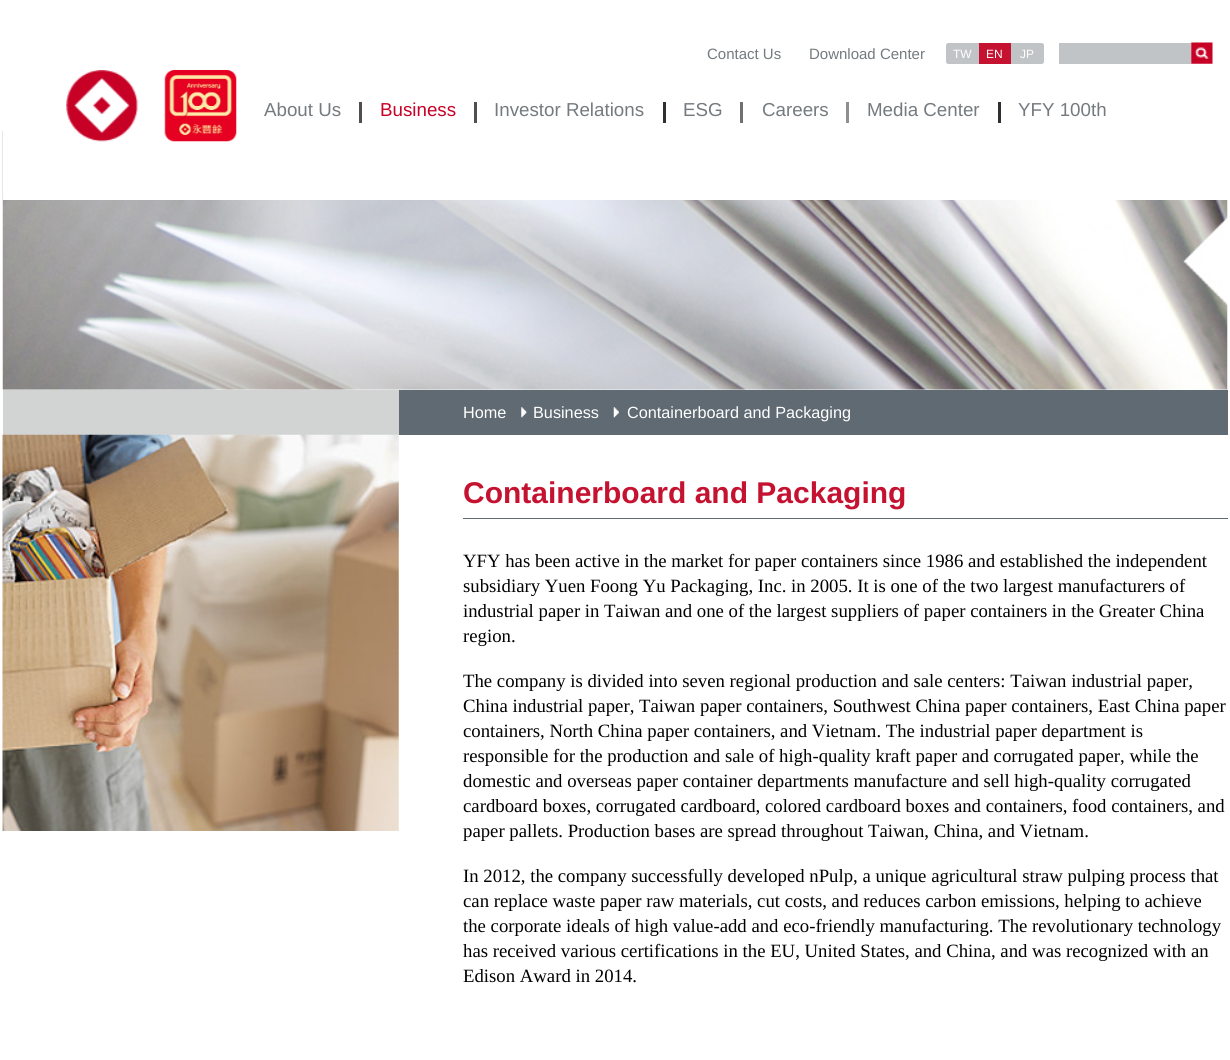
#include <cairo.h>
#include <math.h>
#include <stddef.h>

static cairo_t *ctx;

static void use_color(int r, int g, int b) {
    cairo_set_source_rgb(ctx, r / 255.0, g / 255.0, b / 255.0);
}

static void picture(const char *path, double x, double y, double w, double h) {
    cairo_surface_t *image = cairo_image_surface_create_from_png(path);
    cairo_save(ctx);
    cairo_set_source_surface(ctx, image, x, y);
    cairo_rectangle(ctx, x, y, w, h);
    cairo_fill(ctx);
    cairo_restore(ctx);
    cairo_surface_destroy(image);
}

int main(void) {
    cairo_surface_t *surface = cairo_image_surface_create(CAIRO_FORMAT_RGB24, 1230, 1060);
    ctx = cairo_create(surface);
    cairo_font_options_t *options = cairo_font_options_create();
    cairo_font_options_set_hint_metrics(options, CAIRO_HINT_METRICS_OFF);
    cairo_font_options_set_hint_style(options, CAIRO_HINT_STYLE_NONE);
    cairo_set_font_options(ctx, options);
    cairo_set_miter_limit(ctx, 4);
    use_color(255, 255, 255);
    cairo_paint(ctx);
    picture("img4.png", 2, 131, 1226, 259);
    use_color(255, 255, 255);
    cairo_rectangle(ctx, 3, 131, 1225, 69);
    cairo_fill(ctx);
    cairo_select_font_face(ctx, "Liberation Sans", CAIRO_FONT_SLANT_NORMAL, CAIRO_FONT_WEIGHT_NORMAL);
    cairo_set_font_size(ctx, 15);
    use_color(116, 122, 126);
    cairo_move_to(ctx, 707, 59);
    cairo_show_text(ctx, "Contact Us");
    cairo_move_to(ctx, 809, 59);
    cairo_show_text(ctx, "Download Center");
    use_color(193, 196, 198);
    cairo_new_path(ctx);
    cairo_move_to(ctx, 948.5, 43);
    cairo_line_to(ctx, 979, 43);
    cairo_line_to(ctx, 979, 64);
    cairo_line_to(ctx, 948.5, 64);
    cairo_curve_to(ctx, 947, 64, 946, 63, 946, 61.5);
    cairo_line_to(ctx, 946, 45.5);
    cairo_curve_to(ctx, 946, 44, 947, 43, 948.5, 43);
    cairo_close_path(ctx);
    cairo_fill(ctx);
    cairo_set_font_size(ctx, 12);
    use_color(255, 255, 255);
    cairo_move_to(ctx, 953, 58);
    cairo_show_text(ctx, "TW");
    use_color(196, 18, 48);
    cairo_rectangle(ctx, 979, 43, 32, 21);
    cairo_fill(ctx);
    use_color(255, 255, 255);
    cairo_move_to(ctx, 986, 58);
    cairo_show_text(ctx, "EN");
    use_color(193, 196, 198);
    cairo_new_path(ctx);
    cairo_move_to(ctx, 1011, 43);
    cairo_line_to(ctx, 1041.5, 43);
    cairo_curve_to(ctx, 1043, 43, 1044, 44, 1044, 45.5);
    cairo_line_to(ctx, 1044, 61.5);
    cairo_curve_to(ctx, 1044, 63, 1043, 64, 1041.5, 64);
    cairo_line_to(ctx, 1011, 64);
    cairo_close_path(ctx);
    cairo_fill(ctx);
    use_color(255, 255, 255);
    cairo_move_to(ctx, 1020, 58);
    cairo_show_text(ctx, "JP");
    use_color(193, 196, 198);
    cairo_rectangle(ctx, 1059, 43, 132, 21);
    cairo_fill(ctx);
    picture("img1.png", 1191, 42, 22, 22);
    picture("img2.png", 66, 70, 73, 72);
    picture("img3.png", 164, 70, 73, 72);
    cairo_set_font_size(ctx, 18.75);
    use_color(116, 122, 126);
    cairo_move_to(ctx, 264, 116);
    cairo_show_text(ctx, "About Us");
    use_color(79, 79, 79);
    cairo_rectangle(ctx, 359, 102, 3, 21);
    cairo_fill(ctx);
    use_color(199, 0, 38);
    cairo_move_to(ctx, 380, 116);
    cairo_show_text(ctx, "Business");
    use_color(79, 79, 79);
    cairo_rectangle(ctx, 474, 102, 3, 21);
    cairo_fill(ctx);
    use_color(116, 122, 126);
    cairo_move_to(ctx, 494, 116);
    cairo_show_text(ctx, "Investor Relations");
    use_color(48, 48, 48);
    cairo_rectangle(ctx, 663, 102, 3, 21);
    cairo_fill(ctx);
    use_color(116, 122, 126);
    cairo_move_to(ctx, 683, 116);
    cairo_show_text(ctx, "ESG");
    use_color(112, 112, 112);
    cairo_rectangle(ctx, 740, 102, 3, 21);
    cairo_fill(ctx);
    use_color(116, 122, 126);
    cairo_move_to(ctx, 762, 116);
    cairo_show_text(ctx, "Careers");
    use_color(143, 143, 143);
    cairo_rectangle(ctx, 846, 102, 3, 21);
    cairo_fill(ctx);
    use_color(116, 122, 126);
    cairo_move_to(ctx, 867, 116);
    cairo_show_text(ctx, "Media Center");
    use_color(48, 48, 48);
    cairo_rectangle(ctx, 998, 102, 3, 21);
    cairo_fill(ctx);
    use_color(116, 122, 126);
    cairo_move_to(ctx, 1018, 116);
    cairo_show_text(ctx, "YFY 100th");
    use_color(210, 212, 212);
    cairo_rectangle(ctx, 3, 390, 396, 45);
    cairo_fill(ctx);
    use_color(95, 106, 114);
    cairo_rectangle(ctx, 399, 390, 829, 45);
    cairo_fill(ctx);
    picture("img5.png", 2, 434, 397, 397);
    cairo_set_font_size(ctx, 16.25);
    use_color(255, 255, 255);
    cairo_move_to(ctx, 463, 418);
    cairo_show_text(ctx, "Home");
    picture("img6.png", 521, 407, 6, 11);
    cairo_move_to(ctx, 533, 418);
    cairo_show_text(ctx, "Business");
    picture("img7.png", 613, 407, 6, 11);
    cairo_move_to(ctx, 627, 418);
    cairo_show_text(ctx, "Containerboard and Packaging");
    use_color(95, 106, 114);
    cairo_rectangle(ctx, 463, 518, 765, 1);
    cairo_fill(ctx);
    cairo_select_font_face(ctx, "Liberation Sans", CAIRO_FONT_SLANT_NORMAL, CAIRO_FONT_WEIGHT_BOLD);
    cairo_set_font_size(ctx, 30);
    use_color(196, 18, 48);
    cairo_move_to(ctx, 463, 503);
    cairo_show_text(ctx, "Containerboard and Packaging");
    cairo_select_font_face(ctx, "Liberation Serif", CAIRO_FONT_SLANT_NORMAL, CAIRO_FONT_WEIGHT_NORMAL);
    cairo_set_font_size(ctx, 18.75);
    use_color(0, 0, 0);
    cairo_move_to(ctx, 463, 567);
    cairo_show_text(ctx, "YFY has been active in the market for paper containers since 1986 and established the independent");
    cairo_move_to(ctx, 463, 592);
    cairo_show_text(ctx, "subsidiary Yuen Foong Yu Packaging, Inc. in 2005. It is one of the two largest manufacturers of");
    cairo_move_to(ctx, 463, 617);
    cairo_show_text(ctx, "industrial paper in Taiwan and one of the largest suppliers of paper containers in the Greater China");
    cairo_move_to(ctx, 463, 642);
    cairo_show_text(ctx, "region.");
    cairo_move_to(ctx, 463, 687);
    cairo_show_text(ctx, "The company is divided into seven regional production and sale centers: Taiwan industrial paper,");
    cairo_move_to(ctx, 463, 712);
    cairo_show_text(ctx, "China industrial paper, Taiwan paper containers, Southwest China paper containers, East China paper");
    cairo_move_to(ctx, 463, 737);
    cairo_show_text(ctx, "containers, North China paper containers, and Vietnam. The industrial paper department is");
    cairo_move_to(ctx, 463, 762);
    cairo_show_text(ctx, "responsible for the production and sale of high-quality kraft paper and corrugated paper, while the");
    cairo_move_to(ctx, 463, 787);
    cairo_show_text(ctx, "domestic and overseas paper container departments manufacture and sell high-quality corrugated");
    cairo_move_to(ctx, 463, 812);
    cairo_show_text(ctx, "cardboard boxes, corrugated cardboard, colored cardboard boxes and containers, food containers, and");
    cairo_move_to(ctx, 463, 837);
    cairo_show_text(ctx, "paper pallets. Production bases are spread throughout Taiwan, China, and Vietnam.");
    cairo_move_to(ctx, 463, 882);
    cairo_show_text(ctx, "In 2012, the company successfully developed nPulp, a unique agricultural straw pulping process that");
    cairo_move_to(ctx, 463, 907);
    cairo_show_text(ctx, "can replace waste paper raw materials, cut costs, and reduces carbon emissions, helping to achieve");
    cairo_move_to(ctx, 463, 932);
    cairo_show_text(ctx, "the corporate ideals of high value-add and eco-friendly manufacturing. The revolutionary technology");
    cairo_move_to(ctx, 463, 957);
    cairo_show_text(ctx, "has received various certifications in the EU, United States, and China, and was recognized with an");
    cairo_move_to(ctx, 463, 982);
    cairo_show_text(ctx, "Edison Award in 2014.");
    cairo_surface_write_to_png(surface, "result.png");
    cairo_font_options_destroy(options);
    cairo_destroy(ctx);
    cairo_surface_destroy(surface);
    return 0;
}
